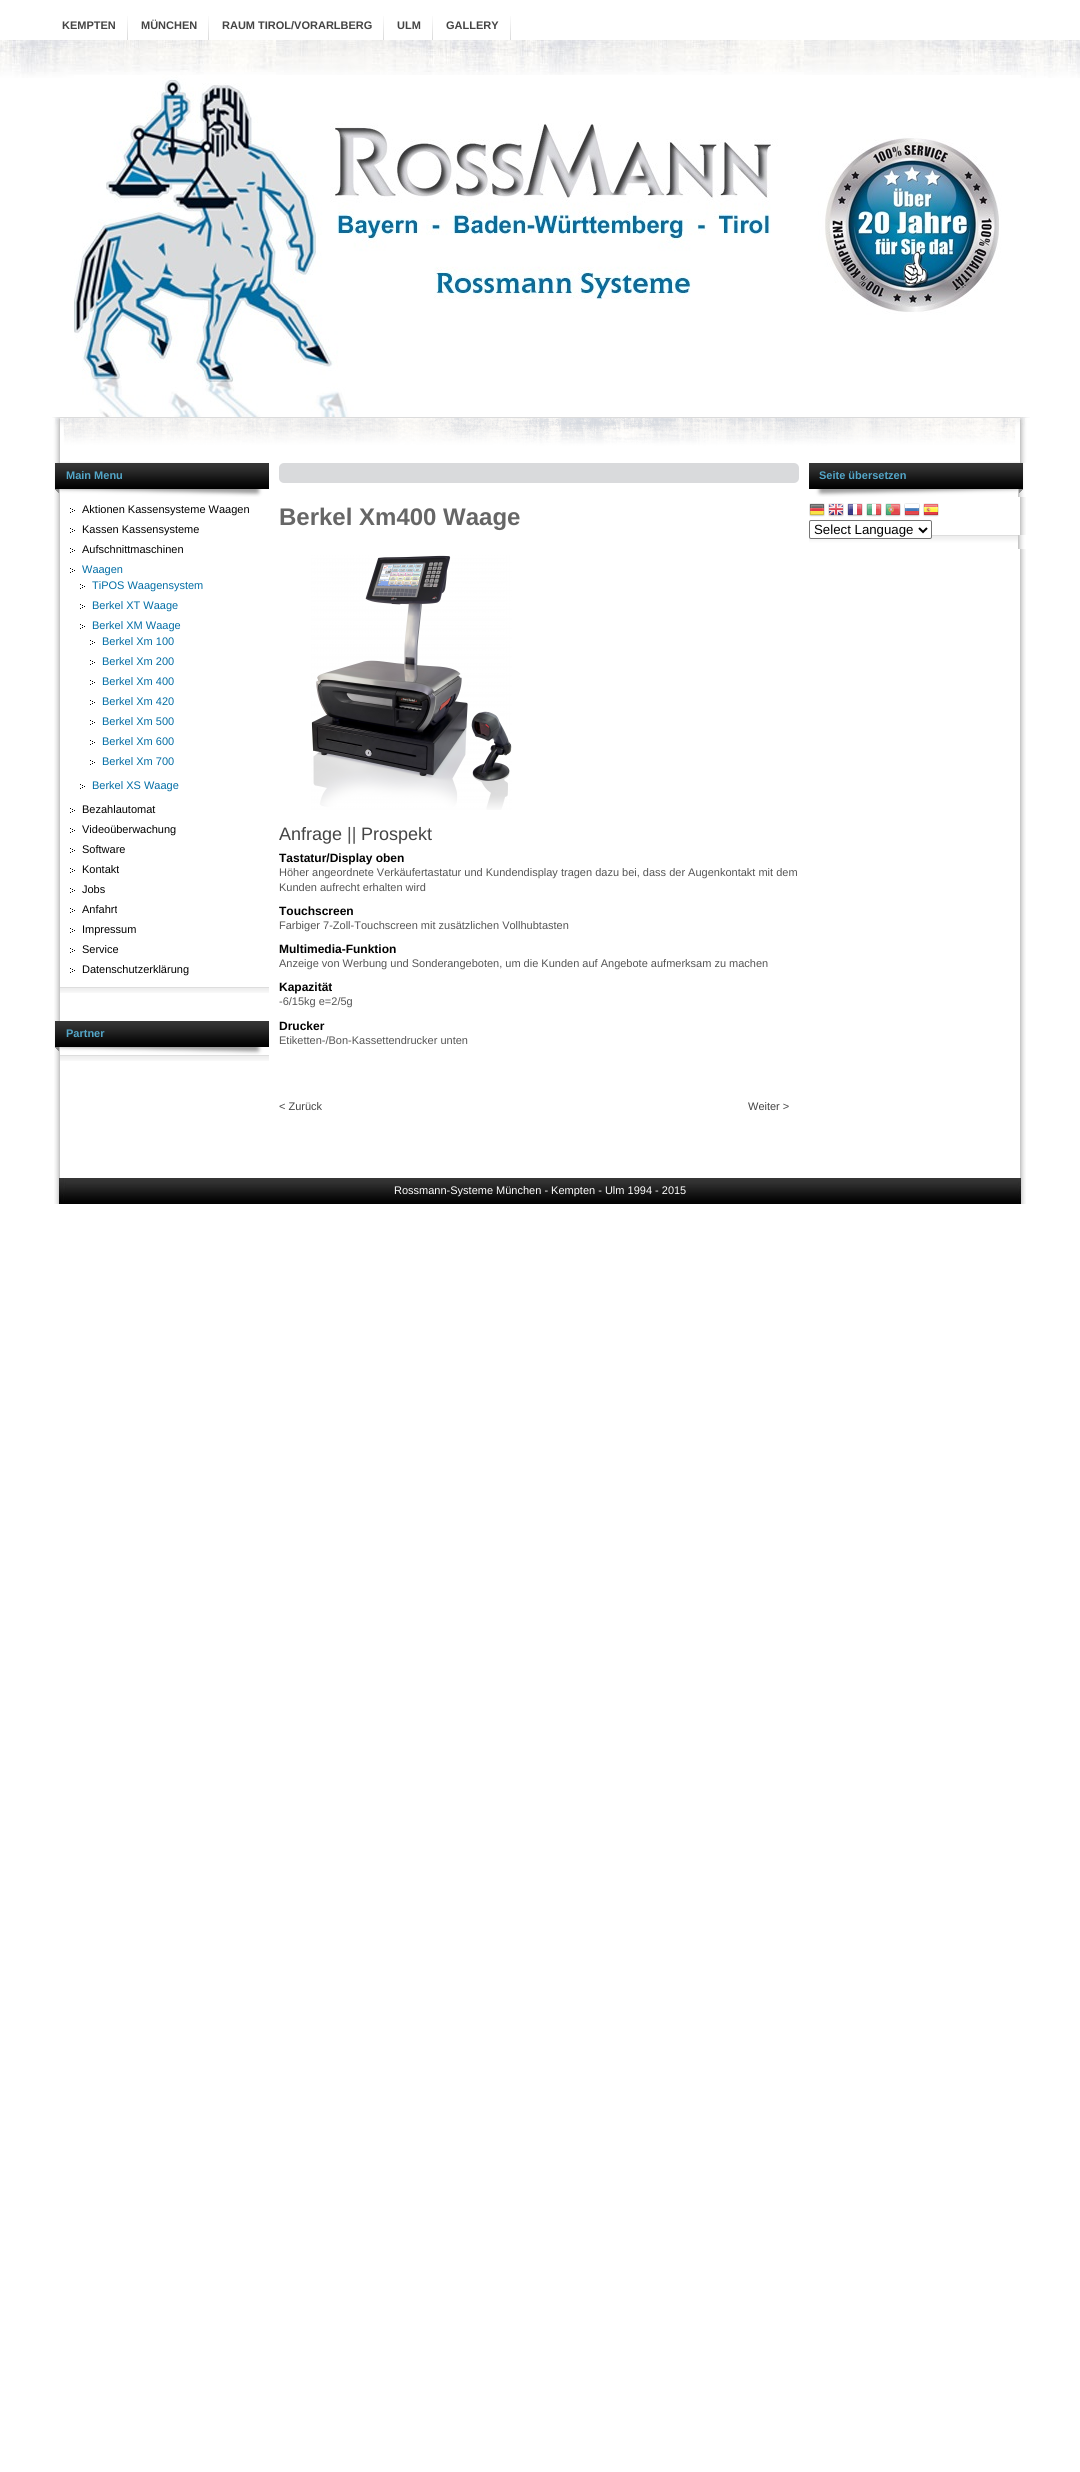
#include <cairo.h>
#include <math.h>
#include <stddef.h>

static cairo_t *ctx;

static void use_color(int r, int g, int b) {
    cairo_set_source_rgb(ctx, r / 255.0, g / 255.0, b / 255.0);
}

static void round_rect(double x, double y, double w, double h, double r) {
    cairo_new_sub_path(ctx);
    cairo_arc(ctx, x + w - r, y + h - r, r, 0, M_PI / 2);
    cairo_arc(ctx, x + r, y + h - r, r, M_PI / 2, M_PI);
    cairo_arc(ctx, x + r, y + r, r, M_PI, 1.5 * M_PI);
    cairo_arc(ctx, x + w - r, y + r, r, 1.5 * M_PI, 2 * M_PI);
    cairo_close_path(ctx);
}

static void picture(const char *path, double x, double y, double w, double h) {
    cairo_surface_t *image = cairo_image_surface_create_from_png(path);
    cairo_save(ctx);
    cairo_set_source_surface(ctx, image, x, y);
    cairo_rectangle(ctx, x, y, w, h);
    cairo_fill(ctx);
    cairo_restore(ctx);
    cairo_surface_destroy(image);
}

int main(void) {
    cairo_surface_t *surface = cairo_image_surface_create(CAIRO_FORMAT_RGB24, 1080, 2472);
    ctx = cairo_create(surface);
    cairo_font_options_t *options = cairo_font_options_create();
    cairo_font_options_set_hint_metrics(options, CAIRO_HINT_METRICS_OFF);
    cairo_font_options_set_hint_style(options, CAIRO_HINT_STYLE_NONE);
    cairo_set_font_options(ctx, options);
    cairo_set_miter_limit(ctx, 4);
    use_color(255, 255, 255);
    cairo_paint(ctx);
    picture("img1.png", 0, 40, 1080, 38);
    picture("img2.png", 127, 16, 1, 24);
    cairo_select_font_face(ctx, "Liberation Sans", CAIRO_FONT_SLANT_NORMAL, CAIRO_FONT_WEIGHT_BOLD);
    cairo_set_font_size(ctx, 11);
    use_color(68, 68, 68);
    cairo_move_to(ctx, 62, 29);
    cairo_show_text(ctx, "KEMPTEN");
    picture("img2.png", 208, 16, 1, 24);
    cairo_move_to(ctx, 141, 29);
    cairo_show_text(ctx, "MÜNCHEN");
    picture("img2.png", 383, 16, 1, 24);
    cairo_move_to(ctx, 222, 29);
    cairo_show_text(ctx, "RAUM TIROL/VORARLBERG");
    picture("img2.png", 432, 16, 1, 24);
    cairo_move_to(ctx, 397, 29);
    cairo_show_text(ctx, "ULM");
    picture("img2.png", 510, 16, 1, 24);
    cairo_move_to(ctx, 446, 29);
    cairo_show_text(ctx, "GALLERY");
    picture("img3.png", 74, 75, 947, 342);
    picture("img4.png", 54, 463, 972, 741);
    picture("img5.png", 52, 417, 978, 46);
    picture("img6.png", 60, 987, 209, 6);
    picture("img7.png", 55, 463, 214, 34);
    use_color(83, 166, 200);
    cairo_move_to(ctx, 66, 479);
    cairo_show_text(ctx, "Main Menu");
    picture("img8.png", 70, 508, 5, 5);
    cairo_select_font_face(ctx, "Liberation Sans", CAIRO_FONT_SLANT_NORMAL, CAIRO_FONT_WEIGHT_NORMAL);
    use_color(1, 1, 1);
    cairo_move_to(ctx, 82, 513);
    cairo_show_text(ctx, "Aktionen Kassensysteme Waagen");
    picture("img8.png", 70, 528, 5, 5);
    cairo_move_to(ctx, 82, 533);
    cairo_show_text(ctx, "Kassen Kassensysteme");
    picture("img8.png", 70, 548, 5, 5);
    cairo_move_to(ctx, 82, 553);
    cairo_show_text(ctx, "Aufschnittmaschinen");
    picture("img8.png", 70, 568, 5, 5);
    use_color(2, 109, 165);
    cairo_move_to(ctx, 82, 573);
    cairo_show_text(ctx, "Waagen");
    picture("img8.png", 80, 584, 5, 5);
    cairo_move_to(ctx, 92, 589);
    cairo_show_text(ctx, "TiPOS Waagensystem");
    picture("img8.png", 80, 604, 5, 5);
    cairo_move_to(ctx, 92, 609);
    cairo_show_text(ctx, "Berkel XT Waage");
    picture("img8.png", 80, 624, 5, 5);
    cairo_move_to(ctx, 92, 629);
    cairo_show_text(ctx, "Berkel XM Waage");
    picture("img8.png", 90, 640, 5, 5);
    cairo_move_to(ctx, 102, 645);
    cairo_show_text(ctx, "Berkel Xm 100");
    picture("img8.png", 90, 660, 5, 5);
    cairo_move_to(ctx, 102, 665);
    cairo_show_text(ctx, "Berkel Xm 200");
    picture("img8.png", 90, 680, 5, 5);
    cairo_move_to(ctx, 102, 685);
    cairo_show_text(ctx, "Berkel Xm 400");
    picture("img8.png", 90, 700, 5, 5);
    cairo_move_to(ctx, 102, 705);
    cairo_show_text(ctx, "Berkel Xm 420");
    picture("img8.png", 90, 720, 5, 5);
    cairo_move_to(ctx, 102, 725);
    cairo_show_text(ctx, "Berkel Xm 500");
    picture("img8.png", 90, 740, 5, 5);
    cairo_move_to(ctx, 102, 745);
    cairo_show_text(ctx, "Berkel Xm 600");
    picture("img8.png", 90, 760, 5, 5);
    cairo_move_to(ctx, 102, 765);
    cairo_show_text(ctx, "Berkel Xm 700");
    picture("img8.png", 80, 784, 5, 5);
    cairo_move_to(ctx, 92, 789);
    cairo_show_text(ctx, "Berkel XS Waage");
    picture("img8.png", 70, 808, 5, 5);
    use_color(1, 1, 1);
    cairo_move_to(ctx, 82, 813);
    cairo_show_text(ctx, "Bezahlautomat");
    picture("img8.png", 70, 828, 5, 5);
    cairo_move_to(ctx, 82, 833);
    cairo_show_text(ctx, "Videoüberwachung");
    picture("img8.png", 70, 848, 5, 5);
    cairo_move_to(ctx, 82, 853);
    cairo_show_text(ctx, "Software");
    picture("img8.png", 70, 868, 5, 5);
    cairo_move_to(ctx, 82, 873);
    cairo_show_text(ctx, "Kontakt");
    picture("img8.png", 70, 888, 5, 5);
    cairo_move_to(ctx, 82, 893);
    cairo_show_text(ctx, "Jobs");
    picture("img8.png", 70, 908, 5, 5);
    cairo_move_to(ctx, 82, 913);
    cairo_show_text(ctx, "Anfahrt");
    picture("img8.png", 70, 928, 5, 5);
    cairo_move_to(ctx, 82, 933);
    cairo_show_text(ctx, "Impressum");
    picture("img8.png", 70, 948, 5, 5);
    cairo_move_to(ctx, 82, 953);
    cairo_show_text(ctx, "Service");
    picture("img8.png", 70, 968, 5, 5);
    cairo_move_to(ctx, 82, 973);
    cairo_show_text(ctx, "Datenschutzerklärung");
    picture("img6.png", 60, 1055, 209, 6);
    picture("img7.png", 55, 1021, 214, 34);
    cairo_select_font_face(ctx, "Liberation Sans", CAIRO_FONT_SLANT_NORMAL, CAIRO_FONT_WEIGHT_BOLD);
    use_color(83, 166, 200);
    cairo_move_to(ctx, 66, 1037);
    cairo_show_text(ctx, "Partner");
    use_color(217, 218, 220);
    round_rect(279, 463, 520, 20, 5);
    cairo_fill(ctx);
    cairo_set_font_size(ctx, 24);
    use_color(102, 102, 102);
    cairo_move_to(ctx, 279, 525);
    cairo_show_text(ctx, "Berkel Xm400 Waage");
    picture("img9.png", 311, 555, 201, 255);
    cairo_select_font_face(ctx, "Liberation Sans", CAIRO_FONT_SLANT_NORMAL, CAIRO_FONT_WEIGHT_NORMAL);
    cairo_set_font_size(ctx, 18);
    use_color(68, 68, 68);
    cairo_move_to(ctx, 279, 840);
    cairo_show_text(ctx, "Anfrage");
    use_color(85, 85, 85);
    cairo_move_to(ctx, 347, 840);
    cairo_show_text(ctx, "||");
    use_color(68, 68, 68);
    cairo_move_to(ctx, 361, 840);
    cairo_show_text(ctx, "Prospekt");
    cairo_select_font_face(ctx, "Liberation Sans", CAIRO_FONT_SLANT_NORMAL, CAIRO_FONT_WEIGHT_BOLD);
    cairo_set_font_size(ctx, 12);
    use_color(1, 1, 1);
    cairo_move_to(ctx, 279, 862);
    cairo_show_text(ctx, "Tastatur/Display oben");
    cairo_select_font_face(ctx, "Liberation Sans", CAIRO_FONT_SLANT_NORMAL, CAIRO_FONT_WEIGHT_NORMAL);
    cairo_set_font_size(ctx, 11);
    use_color(85, 85, 85);
    cairo_move_to(ctx, 279, 876);
    cairo_show_text(ctx, "Höher angeordnete Verkäufertastatur und Kundendisplay tragen dazu bei, dass der Augenkontakt mit dem");
    cairo_move_to(ctx, 279, 891);
    cairo_show_text(ctx, "Kunden aufrecht erhalten wird");
    cairo_select_font_face(ctx, "Liberation Sans", CAIRO_FONT_SLANT_NORMAL, CAIRO_FONT_WEIGHT_BOLD);
    cairo_set_font_size(ctx, 12);
    use_color(1, 1, 1);
    cairo_move_to(ctx, 279, 915);
    cairo_show_text(ctx, "Touchscreen");
    cairo_select_font_face(ctx, "Liberation Sans", CAIRO_FONT_SLANT_NORMAL, CAIRO_FONT_WEIGHT_NORMAL);
    cairo_set_font_size(ctx, 11);
    use_color(85, 85, 85);
    cairo_move_to(ctx, 279, 929);
    cairo_show_text(ctx, "Farbiger 7-Zoll-Touchscreen mit zusätzlichen Vollhubtasten");
    cairo_select_font_face(ctx, "Liberation Sans", CAIRO_FONT_SLANT_NORMAL, CAIRO_FONT_WEIGHT_BOLD);
    cairo_set_font_size(ctx, 12);
    use_color(1, 1, 1);
    cairo_move_to(ctx, 279, 953);
    cairo_show_text(ctx, "Multimedia-Funktion");
    cairo_select_font_face(ctx, "Liberation Sans", CAIRO_FONT_SLANT_NORMAL, CAIRO_FONT_WEIGHT_NORMAL);
    cairo_set_font_size(ctx, 11);
    use_color(85, 85, 85);
    cairo_move_to(ctx, 279, 967);
    cairo_show_text(ctx, "Anzeige von Werbung und Sonderangeboten, um die Kunden auf Angebote aufmerksam zu machen");
    cairo_select_font_face(ctx, "Liberation Sans", CAIRO_FONT_SLANT_NORMAL, CAIRO_FONT_WEIGHT_BOLD);
    cairo_set_font_size(ctx, 12);
    use_color(1, 1, 1);
    cairo_move_to(ctx, 279, 991);
    cairo_show_text(ctx, "Kapazität");
    cairo_select_font_face(ctx, "Liberation Sans", CAIRO_FONT_SLANT_NORMAL, CAIRO_FONT_WEIGHT_NORMAL);
    cairo_set_font_size(ctx, 11);
    use_color(85, 85, 85);
    cairo_move_to(ctx, 279, 1005);
    cairo_show_text(ctx, "-6/15kg e=2/5g");
    cairo_select_font_face(ctx, "Liberation Sans", CAIRO_FONT_SLANT_NORMAL, CAIRO_FONT_WEIGHT_BOLD);
    cairo_set_font_size(ctx, 12);
    use_color(1, 1, 1);
    cairo_move_to(ctx, 279, 1030);
    cairo_show_text(ctx, "Drucker");
    cairo_select_font_face(ctx, "Liberation Sans", CAIRO_FONT_SLANT_NORMAL, CAIRO_FONT_WEIGHT_NORMAL);
    cairo_set_font_size(ctx, 11);
    use_color(85, 85, 85);
    cairo_move_to(ctx, 279, 1044);
    cairo_show_text(ctx, "Etiketten-/Bon-Kassettendrucker unten");
    use_color(68, 68, 68);
    cairo_move_to(ctx, 279, 1110);
    cairo_show_text(ctx, "< Zurück");
    cairo_move_to(ctx, 748, 1110);
    cairo_show_text(ctx, "Weiter >");
    picture("img10.png", 809, 535, 219, 14);
    picture("img11.png", 809, 463, 217, 34);
    cairo_select_font_face(ctx, "Liberation Sans", CAIRO_FONT_SLANT_NORMAL, CAIRO_FONT_WEIGHT_BOLD);
    use_color(83, 166, 200);
    cairo_move_to(ctx, 819, 479);
    cairo_show_text(ctx, "Seite übersetzen");
    picture("img12.png", 809, 503, 16, 14);
    picture("img13.png", 828, 503, 16, 14);
    picture("img14.png", 847, 503, 16, 14);
    picture("img15.png", 866, 503, 16, 14);
    picture("img16.png", 885, 503, 16, 14);
    picture("img17.png", 904, 503, 16, 14);
    picture("img18.png", 923, 503, 16, 14);
    use_color(255, 255, 255);
    round_rect(809.5, 520.5, 122, 18, 1.5);
    cairo_fill_preserve(ctx);
    use_color(118, 118, 118);
    cairo_set_line_width(ctx, 1);
    cairo_stroke(ctx);
    cairo_new_path(ctx);
    cairo_move_to(ctx, 919, 528);
    cairo_line_to(ctx, 923, 532);
    cairo_line_to(ctx, 927, 528);
    use_color(0, 0, 0);
    cairo_set_line_width(ctx, 2);
    cairo_stroke(ctx);
    cairo_select_font_face(ctx, "Liberation Sans", CAIRO_FONT_SLANT_NORMAL, CAIRO_FONT_WEIGHT_NORMAL);
    cairo_set_font_size(ctx, 13.25);
    use_color(1, 1, 1);
    cairo_move_to(ctx, 814, 534);
    cairo_show_text(ctx, "Select Language");
    picture("img19.png", 59, 1178, 962, 26);
    cairo_set_font_size(ctx, 11);
    use_color(255, 255, 255);
    cairo_move_to(ctx, 394, 1194);
    cairo_show_text(ctx, "Rossmann-Systeme München - Kempten - Ulm 1994 - 2015");
    cairo_surface_write_to_png(surface, "result.png");
    cairo_font_options_destroy(options);
    cairo_destroy(ctx);
    cairo_surface_destroy(surface);
    return 0;
}
